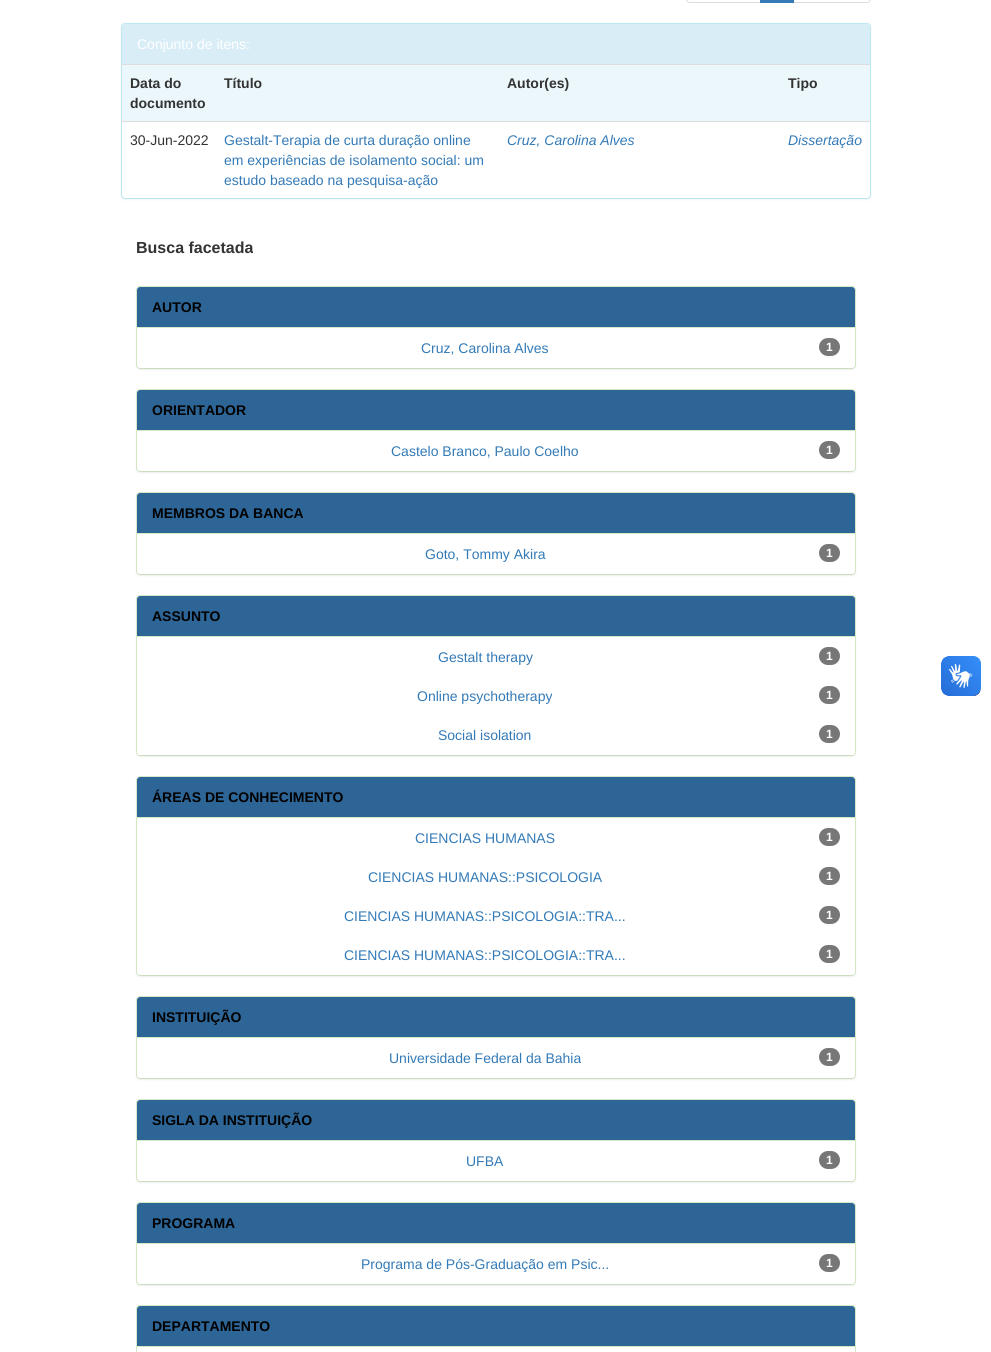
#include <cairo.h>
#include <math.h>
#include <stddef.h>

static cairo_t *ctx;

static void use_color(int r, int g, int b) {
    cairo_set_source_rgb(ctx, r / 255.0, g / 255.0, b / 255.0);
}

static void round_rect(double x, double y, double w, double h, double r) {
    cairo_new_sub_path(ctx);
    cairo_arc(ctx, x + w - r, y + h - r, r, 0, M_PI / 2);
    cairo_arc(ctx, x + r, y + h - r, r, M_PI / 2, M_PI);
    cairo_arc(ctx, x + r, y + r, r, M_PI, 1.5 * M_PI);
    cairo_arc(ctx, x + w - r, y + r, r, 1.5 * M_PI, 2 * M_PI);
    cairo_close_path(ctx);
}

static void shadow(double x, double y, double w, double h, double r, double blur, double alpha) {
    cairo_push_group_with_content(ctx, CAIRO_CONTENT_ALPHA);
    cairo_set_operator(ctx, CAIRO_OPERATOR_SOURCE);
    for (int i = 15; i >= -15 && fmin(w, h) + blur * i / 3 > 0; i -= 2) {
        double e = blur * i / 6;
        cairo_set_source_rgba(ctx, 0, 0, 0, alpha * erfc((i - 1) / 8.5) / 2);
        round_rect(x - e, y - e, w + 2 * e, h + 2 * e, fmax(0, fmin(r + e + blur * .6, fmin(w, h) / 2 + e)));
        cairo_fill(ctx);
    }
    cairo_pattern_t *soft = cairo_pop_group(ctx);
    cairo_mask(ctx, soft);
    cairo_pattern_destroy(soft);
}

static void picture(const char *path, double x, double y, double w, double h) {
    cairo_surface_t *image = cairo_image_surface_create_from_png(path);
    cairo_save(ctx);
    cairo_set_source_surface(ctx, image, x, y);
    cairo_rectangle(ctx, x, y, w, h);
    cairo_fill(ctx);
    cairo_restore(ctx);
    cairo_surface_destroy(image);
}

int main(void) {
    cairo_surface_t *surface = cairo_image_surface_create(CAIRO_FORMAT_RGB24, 991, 1352);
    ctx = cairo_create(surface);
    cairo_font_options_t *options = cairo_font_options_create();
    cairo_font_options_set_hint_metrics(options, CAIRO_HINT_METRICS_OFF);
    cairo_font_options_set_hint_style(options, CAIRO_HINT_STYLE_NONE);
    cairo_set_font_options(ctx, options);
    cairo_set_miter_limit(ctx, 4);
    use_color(255, 255, 255);
    cairo_paint(ctx);
    cairo_new_path(ctx);
    cairo_move_to(ctx, 690, -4.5);
    cairo_line_to(ctx, 760.5, -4.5);
    cairo_line_to(ctx, 760.5, 2.5);
    cairo_line_to(ctx, 690, 2.5);
    cairo_curve_to(ctx, 688, 2.5, 686.5, 1, 686.5, -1);
    cairo_curve_to(ctx, 686.5, -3, 688, -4.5, 690, -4.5);
    cairo_close_path(ctx);
    use_color(221, 221, 221);
    cairo_set_line_width(ctx, 1);
    cairo_stroke(ctx);
    cairo_new_path(ctx);
    cairo_move_to(ctx, 793.5, -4.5);
    cairo_line_to(ctx, 867, -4.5);
    cairo_curve_to(ctx, 869, -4.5, 870.5, -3, 870.5, -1);
    cairo_curve_to(ctx, 870.5, 1, 869, 2.5, 867, 2.5);
    cairo_line_to(ctx, 793.5, 2.5);
    cairo_close_path(ctx);
    cairo_stroke(ctx);
    use_color(51, 122, 183);
    cairo_rectangle(ctx, 760, 0, 34, 3);
    cairo_fill(ctx);
    use_color(0, 0, 0);
    shadow(121, 24, 750, 176, 4, 1, 0.05);
    use_color(255, 255, 255);
    round_rect(121.5, 23.5, 749, 175, 3.5);
    cairo_fill_preserve(ctx);
    use_color(188, 232, 241);
    cairo_stroke(ctx);
    use_color(217, 237, 247);
    cairo_new_path(ctx);
    cairo_move_to(ctx, 125, 24);
    cairo_line_to(ctx, 867, 24);
    cairo_curve_to(ctx, 868.5, 24, 870, 25.5, 870, 27);
    cairo_line_to(ctx, 870, 64);
    cairo_line_to(ctx, 122, 64);
    cairo_line_to(ctx, 122, 27);
    cairo_curve_to(ctx, 122, 25.5, 123.5, 24, 125, 24);
    cairo_close_path(ctx);
    cairo_fill(ctx);
    cairo_select_font_face(ctx, "Liberation Sans", CAIRO_FONT_SLANT_NORMAL, CAIRO_FONT_WEIGHT_NORMAL);
    cairo_set_font_size(ctx, 14);
    use_color(255, 255, 255);
    cairo_move_to(ctx, 137, 49);
    cairo_show_text(ctx, "Conjunto de itens:");
    use_color(235, 247, 251);
    cairo_rectangle(ctx, 122, 65, 748, 56);
    cairo_fill(ctx);
    cairo_select_font_face(ctx, "Liberation Sans", CAIRO_FONT_SLANT_NORMAL, CAIRO_FONT_WEIGHT_BOLD);
    use_color(51, 51, 51);
    cairo_move_to(ctx, 130, 88);
    cairo_show_text(ctx, "Data do");
    cairo_move_to(ctx, 130, 108);
    cairo_show_text(ctx, "documento");
    cairo_move_to(ctx, 224, 88);
    cairo_show_text(ctx, "Título");
    cairo_move_to(ctx, 507, 88);
    cairo_show_text(ctx, "Autor(es)");
    use_color(221, 221, 221);
    cairo_rectangle(ctx, 121, 64, 749, 1);
    cairo_fill(ctx);
    use_color(51, 51, 51);
    cairo_move_to(ctx, 788, 88);
    cairo_show_text(ctx, "Tipo");
    cairo_select_font_face(ctx, "Liberation Sans", CAIRO_FONT_SLANT_NORMAL, CAIRO_FONT_WEIGHT_NORMAL);
    cairo_move_to(ctx, 130, 145);
    cairo_show_text(ctx, "30-Jun-2022");
    use_color(51, 122, 183);
    cairo_move_to(ctx, 224, 145);
    cairo_show_text(ctx, "Gestalt-Terapia de curta duração online");
    cairo_move_to(ctx, 224, 165);
    cairo_show_text(ctx, "em experiências de isolamento social: um");
    cairo_move_to(ctx, 224, 185);
    cairo_show_text(ctx, "estudo baseado na pesquisa-ação");
    cairo_select_font_face(ctx, "Liberation Sans", CAIRO_FONT_SLANT_ITALIC, CAIRO_FONT_WEIGHT_NORMAL);
    cairo_move_to(ctx, 507, 145);
    cairo_show_text(ctx, "Cruz, Carolina Alves");
    use_color(221, 221, 221);
    cairo_rectangle(ctx, 121, 121, 749, 1);
    cairo_fill(ctx);
    use_color(51, 122, 183);
    cairo_move_to(ctx, 788, 145);
    cairo_show_text(ctx, "Dissertação");
    cairo_select_font_face(ctx, "Liberation Sans", CAIRO_FONT_SLANT_NORMAL, CAIRO_FONT_WEIGHT_BOLD);
    cairo_set_font_size(ctx, 16);
    use_color(51, 51, 51);
    cairo_move_to(ctx, 136, 253);
    cairo_show_text(ctx, "Busca facetada");
    use_color(0, 0, 0);
    shadow(136, 287, 720, 83, 4, 1, 0.05);
    round_rect(136.5, 286.5, 719, 82, 3.5);
    use_color(214, 233, 198);
    cairo_stroke(ctx);
    use_color(45, 101, 150);
    cairo_new_path(ctx);
    cairo_move_to(ctx, 140, 287);
    cairo_line_to(ctx, 852, 287);
    cairo_curve_to(ctx, 853.5, 287, 855, 288.5, 855, 290);
    cairo_line_to(ctx, 855, 327);
    cairo_line_to(ctx, 137, 327);
    cairo_line_to(ctx, 137, 290);
    cairo_curve_to(ctx, 137, 288.5, 138.5, 287, 140, 287);
    cairo_close_path(ctx);
    cairo_fill(ctx);
    use_color(214, 233, 198);
    cairo_rectangle(ctx, 137, 327, 718, 1);
    cairo_fill(ctx);
    cairo_set_font_size(ctx, 14);
    use_color(0, 0, 0);
    cairo_move_to(ctx, 152, 312);
    cairo_show_text(ctx, "AUTOR");
    use_color(0, 0, 0);
    shadow(137, 329, 718, 40, 4, 1, 0.07);
    use_color(255, 255, 255);
    cairo_new_path(ctx);
    cairo_move_to(ctx, 137, 328);
    cairo_line_to(ctx, 855, 328);
    cairo_line_to(ctx, 855, 365);
    cairo_curve_to(ctx, 855, 366.5, 853.5, 368, 852, 368);
    cairo_line_to(ctx, 140, 368);
    cairo_curve_to(ctx, 138.5, 368, 137, 366.5, 137, 365);
    cairo_close_path(ctx);
    cairo_fill(ctx);
    cairo_select_font_face(ctx, "Liberation Sans", CAIRO_FONT_SLANT_NORMAL, CAIRO_FONT_WEIGHT_NORMAL);
    use_color(51, 122, 183);
    cairo_move_to(ctx, 421, 353);
    cairo_show_text(ctx, "Cruz, Carolina Alves");
    use_color(119, 119, 119);
    round_rect(819, 338, 21, 18, 9);
    cairo_fill(ctx);
    cairo_select_font_face(ctx, "Liberation Sans", CAIRO_FONT_SLANT_NORMAL, CAIRO_FONT_WEIGHT_BOLD);
    cairo_set_font_size(ctx, 12);
    use_color(255, 255, 255);
    cairo_move_to(ctx, 826, 351);
    cairo_show_text(ctx, "1");
    use_color(0, 0, 0);
    shadow(136, 390, 720, 83, 4, 1, 0.05);
    round_rect(136.5, 389.5, 719, 82, 3.5);
    use_color(214, 233, 198);
    cairo_stroke(ctx);
    use_color(45, 101, 150);
    cairo_new_path(ctx);
    cairo_move_to(ctx, 140, 390);
    cairo_line_to(ctx, 852, 390);
    cairo_curve_to(ctx, 853.5, 390, 855, 391.5, 855, 393);
    cairo_line_to(ctx, 855, 430);
    cairo_line_to(ctx, 137, 430);
    cairo_line_to(ctx, 137, 393);
    cairo_curve_to(ctx, 137, 391.5, 138.5, 390, 140, 390);
    cairo_close_path(ctx);
    cairo_fill(ctx);
    use_color(214, 233, 198);
    cairo_rectangle(ctx, 137, 430, 718, 1);
    cairo_fill(ctx);
    cairo_set_font_size(ctx, 14);
    use_color(0, 0, 0);
    cairo_move_to(ctx, 152, 415);
    cairo_show_text(ctx, "ORIENTADOR");
    use_color(0, 0, 0);
    shadow(137, 432, 718, 40, 4, 1, 0.07);
    use_color(255, 255, 255);
    cairo_new_path(ctx);
    cairo_move_to(ctx, 137, 431);
    cairo_line_to(ctx, 855, 431);
    cairo_line_to(ctx, 855, 468);
    cairo_curve_to(ctx, 855, 469.5, 853.5, 471, 852, 471);
    cairo_line_to(ctx, 140, 471);
    cairo_curve_to(ctx, 138.5, 471, 137, 469.5, 137, 468);
    cairo_close_path(ctx);
    cairo_fill(ctx);
    cairo_select_font_face(ctx, "Liberation Sans", CAIRO_FONT_SLANT_NORMAL, CAIRO_FONT_WEIGHT_NORMAL);
    use_color(51, 122, 183);
    cairo_move_to(ctx, 391, 456);
    cairo_show_text(ctx, "Castelo Branco, Paulo Coelho");
    use_color(119, 119, 119);
    round_rect(819, 441, 21, 18, 9);
    cairo_fill(ctx);
    cairo_select_font_face(ctx, "Liberation Sans", CAIRO_FONT_SLANT_NORMAL, CAIRO_FONT_WEIGHT_BOLD);
    cairo_set_font_size(ctx, 12);
    use_color(255, 255, 255);
    cairo_move_to(ctx, 826, 454);
    cairo_show_text(ctx, "1");
    use_color(0, 0, 0);
    shadow(136, 493, 720, 83, 4, 1, 0.05);
    round_rect(136.5, 492.5, 719, 82, 3.5);
    use_color(214, 233, 198);
    cairo_stroke(ctx);
    use_color(45, 101, 150);
    cairo_new_path(ctx);
    cairo_move_to(ctx, 140, 493);
    cairo_line_to(ctx, 852, 493);
    cairo_curve_to(ctx, 853.5, 493, 855, 494.5, 855, 496);
    cairo_line_to(ctx, 855, 533);
    cairo_line_to(ctx, 137, 533);
    cairo_line_to(ctx, 137, 496);
    cairo_curve_to(ctx, 137, 494.5, 138.5, 493, 140, 493);
    cairo_close_path(ctx);
    cairo_fill(ctx);
    use_color(214, 233, 198);
    cairo_rectangle(ctx, 137, 533, 718, 1);
    cairo_fill(ctx);
    cairo_set_font_size(ctx, 14);
    use_color(0, 0, 0);
    cairo_move_to(ctx, 152, 518);
    cairo_show_text(ctx, "MEMBROS DA BANCA");
    use_color(0, 0, 0);
    shadow(137, 535, 718, 40, 4, 1, 0.07);
    use_color(255, 255, 255);
    cairo_new_path(ctx);
    cairo_move_to(ctx, 137, 534);
    cairo_line_to(ctx, 855, 534);
    cairo_line_to(ctx, 855, 571);
    cairo_curve_to(ctx, 855, 572.5, 853.5, 574, 852, 574);
    cairo_line_to(ctx, 140, 574);
    cairo_curve_to(ctx, 138.5, 574, 137, 572.5, 137, 571);
    cairo_close_path(ctx);
    cairo_fill(ctx);
    cairo_select_font_face(ctx, "Liberation Sans", CAIRO_FONT_SLANT_NORMAL, CAIRO_FONT_WEIGHT_NORMAL);
    use_color(51, 122, 183);
    cairo_move_to(ctx, 425, 559);
    cairo_show_text(ctx, "Goto, Tommy Akira");
    use_color(119, 119, 119);
    round_rect(819, 544, 21, 18, 9);
    cairo_fill(ctx);
    cairo_select_font_face(ctx, "Liberation Sans", CAIRO_FONT_SLANT_NORMAL, CAIRO_FONT_WEIGHT_BOLD);
    cairo_set_font_size(ctx, 12);
    use_color(255, 255, 255);
    cairo_move_to(ctx, 826, 557);
    cairo_show_text(ctx, "1");
    use_color(0, 0, 0);
    shadow(136, 596, 720, 161, 4, 1, 0.05);
    use_color(255, 255, 255);
    round_rect(136.5, 595.5, 719, 160, 3.5);
    cairo_fill_preserve(ctx);
    use_color(214, 233, 198);
    cairo_stroke(ctx);
    use_color(45, 101, 150);
    cairo_new_path(ctx);
    cairo_move_to(ctx, 140, 596);
    cairo_line_to(ctx, 852, 596);
    cairo_curve_to(ctx, 853.5, 596, 855, 597.5, 855, 599);
    cairo_line_to(ctx, 855, 636);
    cairo_line_to(ctx, 137, 636);
    cairo_line_to(ctx, 137, 599);
    cairo_curve_to(ctx, 137, 597.5, 138.5, 596, 140, 596);
    cairo_close_path(ctx);
    cairo_fill(ctx);
    use_color(214, 233, 198);
    cairo_rectangle(ctx, 137, 636, 718, 1);
    cairo_fill(ctx);
    cairo_set_font_size(ctx, 14);
    use_color(0, 0, 0);
    cairo_move_to(ctx, 152, 621);
    cairo_show_text(ctx, "ASSUNTO");
    cairo_save(ctx);
    cairo_set_fill_rule(ctx, CAIRO_FILL_RULE_EVEN_ODD);
    cairo_new_path(ctx);
    cairo_move_to(ctx, 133, 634);
    cairo_line_to(ctx, 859, 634);
    cairo_line_to(ctx, 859, 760);
    cairo_line_to(ctx, 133, 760);
    cairo_close_path(ctx);
    cairo_move_to(ctx, 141, 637);
    cairo_line_to(ctx, 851, 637);
    cairo_curve_to(ctx, 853, 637, 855, 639, 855, 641);
    cairo_line_to(ctx, 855, 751);
    cairo_curve_to(ctx, 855, 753, 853, 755, 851, 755);
    cairo_line_to(ctx, 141, 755);
    cairo_curve_to(ctx, 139, 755, 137, 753, 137, 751);
    cairo_line_to(ctx, 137, 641);
    cairo_curve_to(ctx, 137, 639, 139, 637, 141, 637);
    cairo_close_path(ctx);
    cairo_clip(ctx);
    use_color(0, 0, 0);
    shadow(137, 638, 718, 118, 4, 1, 0.07);
    cairo_restore(ctx);
    cairo_select_font_face(ctx, "Liberation Sans", CAIRO_FONT_SLANT_NORMAL, CAIRO_FONT_WEIGHT_NORMAL);
    use_color(51, 122, 183);
    cairo_move_to(ctx, 438, 662);
    cairo_show_text(ctx, "Gestalt therapy");
    use_color(119, 119, 119);
    round_rect(819, 647, 21, 18, 9);
    cairo_fill(ctx);
    cairo_select_font_face(ctx, "Liberation Sans", CAIRO_FONT_SLANT_NORMAL, CAIRO_FONT_WEIGHT_BOLD);
    cairo_set_font_size(ctx, 12);
    use_color(255, 255, 255);
    cairo_move_to(ctx, 826, 660);
    cairo_show_text(ctx, "1");
    cairo_select_font_face(ctx, "Liberation Sans", CAIRO_FONT_SLANT_NORMAL, CAIRO_FONT_WEIGHT_NORMAL);
    cairo_set_font_size(ctx, 14);
    use_color(51, 122, 183);
    cairo_move_to(ctx, 417, 701);
    cairo_show_text(ctx, "Online psychotherapy");
    use_color(119, 119, 119);
    round_rect(819, 686, 21, 18, 9);
    cairo_fill(ctx);
    cairo_select_font_face(ctx, "Liberation Sans", CAIRO_FONT_SLANT_NORMAL, CAIRO_FONT_WEIGHT_BOLD);
    cairo_set_font_size(ctx, 12);
    use_color(255, 255, 255);
    cairo_move_to(ctx, 826, 699);
    cairo_show_text(ctx, "1");
    cairo_new_path(ctx);
    cairo_move_to(ctx, 137, 715);
    cairo_line_to(ctx, 855, 715);
    cairo_line_to(ctx, 855, 752);
    cairo_curve_to(ctx, 855, 753.5, 853.5, 755, 852, 755);
    cairo_line_to(ctx, 140, 755);
    cairo_curve_to(ctx, 138.5, 755, 137, 753.5, 137, 752);
    cairo_close_path(ctx);
    cairo_fill(ctx);
    cairo_select_font_face(ctx, "Liberation Sans", CAIRO_FONT_SLANT_NORMAL, CAIRO_FONT_WEIGHT_NORMAL);
    cairo_set_font_size(ctx, 14);
    use_color(51, 122, 183);
    cairo_move_to(ctx, 438, 740);
    cairo_show_text(ctx, "Social isolation");
    use_color(119, 119, 119);
    round_rect(819, 725, 21, 18, 9);
    cairo_fill(ctx);
    cairo_select_font_face(ctx, "Liberation Sans", CAIRO_FONT_SLANT_NORMAL, CAIRO_FONT_WEIGHT_BOLD);
    cairo_set_font_size(ctx, 12);
    use_color(255, 255, 255);
    cairo_move_to(ctx, 826, 738);
    cairo_show_text(ctx, "1");
    use_color(0, 0, 0);
    shadow(136, 777, 720, 200, 4, 1, 0.05);
    use_color(255, 255, 255);
    round_rect(136.5, 776.5, 719, 199, 3.5);
    cairo_fill_preserve(ctx);
    use_color(214, 233, 198);
    cairo_stroke(ctx);
    use_color(45, 101, 150);
    cairo_new_path(ctx);
    cairo_move_to(ctx, 140, 777);
    cairo_line_to(ctx, 852, 777);
    cairo_curve_to(ctx, 853.5, 777, 855, 778.5, 855, 780);
    cairo_line_to(ctx, 855, 817);
    cairo_line_to(ctx, 137, 817);
    cairo_line_to(ctx, 137, 780);
    cairo_curve_to(ctx, 137, 778.5, 138.5, 777, 140, 777);
    cairo_close_path(ctx);
    cairo_fill(ctx);
    use_color(214, 233, 198);
    cairo_rectangle(ctx, 137, 817, 718, 1);
    cairo_fill(ctx);
    cairo_set_font_size(ctx, 14);
    use_color(0, 0, 0);
    cairo_move_to(ctx, 152, 802);
    cairo_show_text(ctx, "ÁREAS DE CONHECIMENTO");
    cairo_save(ctx);
    cairo_set_fill_rule(ctx, CAIRO_FILL_RULE_EVEN_ODD);
    cairo_new_path(ctx);
    cairo_move_to(ctx, 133, 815);
    cairo_line_to(ctx, 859, 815);
    cairo_line_to(ctx, 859, 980);
    cairo_line_to(ctx, 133, 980);
    cairo_close_path(ctx);
    cairo_move_to(ctx, 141, 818);
    cairo_line_to(ctx, 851, 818);
    cairo_curve_to(ctx, 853, 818, 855, 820, 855, 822);
    cairo_line_to(ctx, 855, 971);
    cairo_curve_to(ctx, 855, 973, 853, 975, 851, 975);
    cairo_line_to(ctx, 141, 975);
    cairo_curve_to(ctx, 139, 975, 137, 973, 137, 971);
    cairo_line_to(ctx, 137, 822);
    cairo_curve_to(ctx, 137, 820, 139, 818, 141, 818);
    cairo_close_path(ctx);
    cairo_clip(ctx);
    use_color(0, 0, 0);
    shadow(137, 819, 718, 157, 4, 1, 0.07);
    cairo_restore(ctx);
    cairo_select_font_face(ctx, "Liberation Sans", CAIRO_FONT_SLANT_NORMAL, CAIRO_FONT_WEIGHT_NORMAL);
    use_color(51, 122, 183);
    cairo_move_to(ctx, 415, 843);
    cairo_show_text(ctx, "CIENCIAS HUMANAS");
    use_color(119, 119, 119);
    round_rect(819, 828, 21, 18, 9);
    cairo_fill(ctx);
    cairo_select_font_face(ctx, "Liberation Sans", CAIRO_FONT_SLANT_NORMAL, CAIRO_FONT_WEIGHT_BOLD);
    cairo_set_font_size(ctx, 12);
    use_color(255, 255, 255);
    cairo_move_to(ctx, 826, 841);
    cairo_show_text(ctx, "1");
    cairo_select_font_face(ctx, "Liberation Sans", CAIRO_FONT_SLANT_NORMAL, CAIRO_FONT_WEIGHT_NORMAL);
    cairo_set_font_size(ctx, 14);
    use_color(51, 122, 183);
    cairo_move_to(ctx, 368, 882);
    cairo_show_text(ctx, "CIENCIAS HUMANAS::PSICOLOGIA");
    use_color(119, 119, 119);
    round_rect(819, 867, 21, 18, 9);
    cairo_fill(ctx);
    cairo_select_font_face(ctx, "Liberation Sans", CAIRO_FONT_SLANT_NORMAL, CAIRO_FONT_WEIGHT_BOLD);
    cairo_set_font_size(ctx, 12);
    use_color(255, 255, 255);
    cairo_move_to(ctx, 826, 880);
    cairo_show_text(ctx, "1");
    cairo_select_font_face(ctx, "Liberation Sans", CAIRO_FONT_SLANT_NORMAL, CAIRO_FONT_WEIGHT_NORMAL);
    cairo_set_font_size(ctx, 14);
    use_color(51, 122, 183);
    cairo_move_to(ctx, 344, 921);
    cairo_show_text(ctx, "CIENCIAS HUMANAS::PSICOLOGIA::TRA...");
    use_color(119, 119, 119);
    round_rect(819, 906, 21, 18, 9);
    cairo_fill(ctx);
    cairo_select_font_face(ctx, "Liberation Sans", CAIRO_FONT_SLANT_NORMAL, CAIRO_FONT_WEIGHT_BOLD);
    cairo_set_font_size(ctx, 12);
    use_color(255, 255, 255);
    cairo_move_to(ctx, 826, 919);
    cairo_show_text(ctx, "1");
    cairo_new_path(ctx);
    cairo_move_to(ctx, 137, 935);
    cairo_line_to(ctx, 855, 935);
    cairo_line_to(ctx, 855, 972);
    cairo_curve_to(ctx, 855, 973.5, 853.5, 975, 852, 975);
    cairo_line_to(ctx, 140, 975);
    cairo_curve_to(ctx, 138.5, 975, 137, 973.5, 137, 972);
    cairo_close_path(ctx);
    cairo_fill(ctx);
    cairo_select_font_face(ctx, "Liberation Sans", CAIRO_FONT_SLANT_NORMAL, CAIRO_FONT_WEIGHT_NORMAL);
    cairo_set_font_size(ctx, 14);
    use_color(51, 122, 183);
    cairo_move_to(ctx, 344, 960);
    cairo_show_text(ctx, "CIENCIAS HUMANAS::PSICOLOGIA::TRA...");
    use_color(119, 119, 119);
    round_rect(819, 945, 21, 18, 9);
    cairo_fill(ctx);
    cairo_select_font_face(ctx, "Liberation Sans", CAIRO_FONT_SLANT_NORMAL, CAIRO_FONT_WEIGHT_BOLD);
    cairo_set_font_size(ctx, 12);
    use_color(255, 255, 255);
    cairo_move_to(ctx, 826, 958);
    cairo_show_text(ctx, "1");
    use_color(0, 0, 0);
    shadow(136, 997, 720, 83, 4, 1, 0.05);
    round_rect(136.5, 996.5, 719, 82, 3.5);
    use_color(214, 233, 198);
    cairo_stroke(ctx);
    use_color(45, 101, 150);
    cairo_new_path(ctx);
    cairo_move_to(ctx, 140, 997);
    cairo_line_to(ctx, 852, 997);
    cairo_curve_to(ctx, 853.5, 997, 855, 998.5, 855, 1000);
    cairo_line_to(ctx, 855, 1037);
    cairo_line_to(ctx, 137, 1037);
    cairo_line_to(ctx, 137, 1000);
    cairo_curve_to(ctx, 137, 998.5, 138.5, 997, 140, 997);
    cairo_close_path(ctx);
    cairo_fill(ctx);
    use_color(214, 233, 198);
    cairo_rectangle(ctx, 137, 1037, 718, 1);
    cairo_fill(ctx);
    cairo_set_font_size(ctx, 14);
    use_color(0, 0, 0);
    cairo_move_to(ctx, 152, 1022);
    cairo_show_text(ctx, "INSTITUIÇÃO");
    use_color(0, 0, 0);
    shadow(137, 1039, 718, 40, 4, 1, 0.07);
    use_color(255, 255, 255);
    cairo_new_path(ctx);
    cairo_move_to(ctx, 137, 1038);
    cairo_line_to(ctx, 855, 1038);
    cairo_line_to(ctx, 855, 1075);
    cairo_curve_to(ctx, 855, 1076.5, 853.5, 1078, 852, 1078);
    cairo_line_to(ctx, 140, 1078);
    cairo_curve_to(ctx, 138.5, 1078, 137, 1076.5, 137, 1075);
    cairo_close_path(ctx);
    cairo_fill(ctx);
    cairo_select_font_face(ctx, "Liberation Sans", CAIRO_FONT_SLANT_NORMAL, CAIRO_FONT_WEIGHT_NORMAL);
    use_color(51, 122, 183);
    cairo_move_to(ctx, 389, 1063);
    cairo_show_text(ctx, "Universidade Federal da Bahia");
    use_color(119, 119, 119);
    round_rect(819, 1048, 21, 18, 9);
    cairo_fill(ctx);
    cairo_select_font_face(ctx, "Liberation Sans", CAIRO_FONT_SLANT_NORMAL, CAIRO_FONT_WEIGHT_BOLD);
    cairo_set_font_size(ctx, 12);
    use_color(255, 255, 255);
    cairo_move_to(ctx, 826, 1061);
    cairo_show_text(ctx, "1");
    use_color(0, 0, 0);
    shadow(136, 1100, 720, 83, 4, 1, 0.05);
    round_rect(136.5, 1099.5, 719, 82, 3.5);
    use_color(214, 233, 198);
    cairo_stroke(ctx);
    use_color(45, 101, 150);
    cairo_new_path(ctx);
    cairo_move_to(ctx, 140, 1100);
    cairo_line_to(ctx, 852, 1100);
    cairo_curve_to(ctx, 853.5, 1100, 855, 1101.5, 855, 1103);
    cairo_line_to(ctx, 855, 1140);
    cairo_line_to(ctx, 137, 1140);
    cairo_line_to(ctx, 137, 1103);
    cairo_curve_to(ctx, 137, 1101.5, 138.5, 1100, 140, 1100);
    cairo_close_path(ctx);
    cairo_fill(ctx);
    use_color(214, 233, 198);
    cairo_rectangle(ctx, 137, 1140, 718, 1);
    cairo_fill(ctx);
    cairo_set_font_size(ctx, 14);
    use_color(0, 0, 0);
    cairo_move_to(ctx, 152, 1125);
    cairo_show_text(ctx, "SIGLA DA INSTITUIÇÃO");
    use_color(0, 0, 0);
    shadow(137, 1142, 718, 40, 4, 1, 0.07);
    use_color(255, 255, 255);
    cairo_new_path(ctx);
    cairo_move_to(ctx, 137, 1141);
    cairo_line_to(ctx, 855, 1141);
    cairo_line_to(ctx, 855, 1178);
    cairo_curve_to(ctx, 855, 1179.5, 853.5, 1181, 852, 1181);
    cairo_line_to(ctx, 140, 1181);
    cairo_curve_to(ctx, 138.5, 1181, 137, 1179.5, 137, 1178);
    cairo_close_path(ctx);
    cairo_fill(ctx);
    cairo_select_font_face(ctx, "Liberation Sans", CAIRO_FONT_SLANT_NORMAL, CAIRO_FONT_WEIGHT_NORMAL);
    use_color(51, 122, 183);
    cairo_move_to(ctx, 466, 1166);
    cairo_show_text(ctx, "UFBA");
    use_color(119, 119, 119);
    round_rect(819, 1151, 21, 18, 9);
    cairo_fill(ctx);
    cairo_select_font_face(ctx, "Liberation Sans", CAIRO_FONT_SLANT_NORMAL, CAIRO_FONT_WEIGHT_BOLD);
    cairo_set_font_size(ctx, 12);
    use_color(255, 255, 255);
    cairo_move_to(ctx, 826, 1164);
    cairo_show_text(ctx, "1");
    use_color(0, 0, 0);
    shadow(136, 1203, 720, 83, 4, 1, 0.05);
    round_rect(136.5, 1202.5, 719, 82, 3.5);
    use_color(214, 233, 198);
    cairo_stroke(ctx);
    use_color(45, 101, 150);
    cairo_new_path(ctx);
    cairo_move_to(ctx, 140, 1203);
    cairo_line_to(ctx, 852, 1203);
    cairo_curve_to(ctx, 853.5, 1203, 855, 1204.5, 855, 1206);
    cairo_line_to(ctx, 855, 1243);
    cairo_line_to(ctx, 137, 1243);
    cairo_line_to(ctx, 137, 1206);
    cairo_curve_to(ctx, 137, 1204.5, 138.5, 1203, 140, 1203);
    cairo_close_path(ctx);
    cairo_fill(ctx);
    use_color(214, 233, 198);
    cairo_rectangle(ctx, 137, 1243, 718, 1);
    cairo_fill(ctx);
    cairo_set_font_size(ctx, 14);
    use_color(0, 0, 0);
    cairo_move_to(ctx, 152, 1228);
    cairo_show_text(ctx, "PROGRAMA");
    use_color(0, 0, 0);
    shadow(137, 1245, 718, 40, 4, 1, 0.07);
    use_color(255, 255, 255);
    cairo_new_path(ctx);
    cairo_move_to(ctx, 137, 1244);
    cairo_line_to(ctx, 855, 1244);
    cairo_line_to(ctx, 855, 1281);
    cairo_curve_to(ctx, 855, 1282.5, 853.5, 1284, 852, 1284);
    cairo_line_to(ctx, 140, 1284);
    cairo_curve_to(ctx, 138.5, 1284, 137, 1282.5, 137, 1281);
    cairo_close_path(ctx);
    cairo_fill(ctx);
    cairo_select_font_face(ctx, "Liberation Sans", CAIRO_FONT_SLANT_NORMAL, CAIRO_FONT_WEIGHT_NORMAL);
    use_color(51, 122, 183);
    cairo_move_to(ctx, 361, 1269);
    cairo_show_text(ctx, "Programa de Pós-Graduação em Psic...");
    use_color(119, 119, 119);
    round_rect(819, 1254, 21, 18, 9);
    cairo_fill(ctx);
    cairo_select_font_face(ctx, "Liberation Sans", CAIRO_FONT_SLANT_NORMAL, CAIRO_FONT_WEIGHT_BOLD);
    cairo_set_font_size(ctx, 12);
    use_color(255, 255, 255);
    cairo_move_to(ctx, 826, 1267);
    cairo_show_text(ctx, "1");
    round_rect(136.5, 1305.5, 719, 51, 3.5);
    use_color(214, 233, 198);
    cairo_stroke(ctx);
    use_color(45, 101, 150);
    cairo_new_path(ctx);
    cairo_move_to(ctx, 140, 1306);
    cairo_line_to(ctx, 852, 1306);
    cairo_curve_to(ctx, 853.5, 1306, 855, 1307.5, 855, 1309);
    cairo_line_to(ctx, 855, 1346);
    cairo_line_to(ctx, 137, 1346);
    cairo_line_to(ctx, 137, 1309);
    cairo_curve_to(ctx, 137, 1307.5, 138.5, 1306, 140, 1306);
    cairo_close_path(ctx);
    cairo_fill(ctx);
    use_color(214, 233, 198);
    cairo_rectangle(ctx, 137, 1346, 718, 1);
    cairo_fill(ctx);
    cairo_set_font_size(ctx, 14);
    use_color(0, 0, 0);
    cairo_move_to(ctx, 152, 1331);
    cairo_show_text(ctx, "DEPARTAMENTO");
    picture("img1.png", 941, 656, 40, 40);
    picture("img2.png", 941, 656, 40, 40);
    cairo_surface_write_to_png(surface, "result.png");
    cairo_font_options_destroy(options);
    cairo_destroy(ctx);
    cairo_surface_destroy(surface);
    return 0;
}
